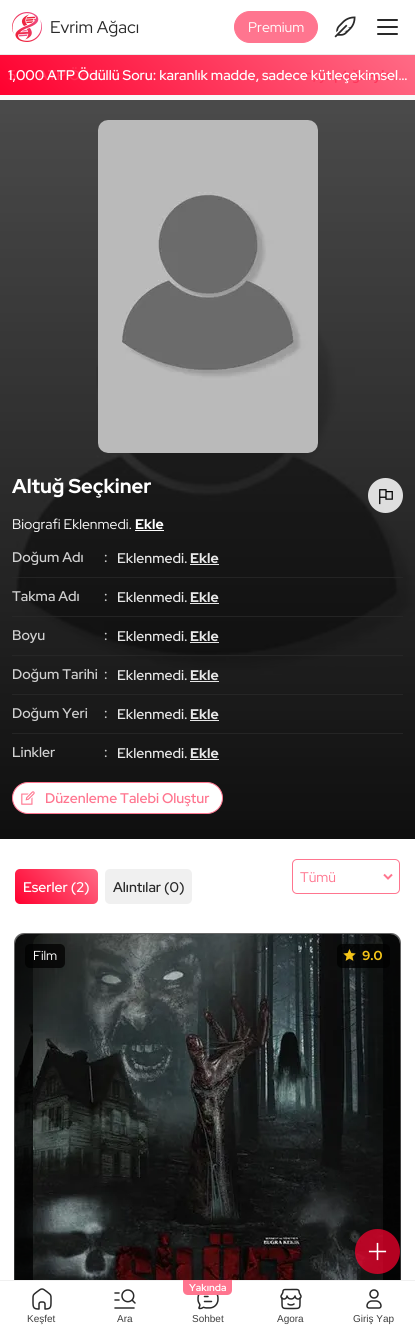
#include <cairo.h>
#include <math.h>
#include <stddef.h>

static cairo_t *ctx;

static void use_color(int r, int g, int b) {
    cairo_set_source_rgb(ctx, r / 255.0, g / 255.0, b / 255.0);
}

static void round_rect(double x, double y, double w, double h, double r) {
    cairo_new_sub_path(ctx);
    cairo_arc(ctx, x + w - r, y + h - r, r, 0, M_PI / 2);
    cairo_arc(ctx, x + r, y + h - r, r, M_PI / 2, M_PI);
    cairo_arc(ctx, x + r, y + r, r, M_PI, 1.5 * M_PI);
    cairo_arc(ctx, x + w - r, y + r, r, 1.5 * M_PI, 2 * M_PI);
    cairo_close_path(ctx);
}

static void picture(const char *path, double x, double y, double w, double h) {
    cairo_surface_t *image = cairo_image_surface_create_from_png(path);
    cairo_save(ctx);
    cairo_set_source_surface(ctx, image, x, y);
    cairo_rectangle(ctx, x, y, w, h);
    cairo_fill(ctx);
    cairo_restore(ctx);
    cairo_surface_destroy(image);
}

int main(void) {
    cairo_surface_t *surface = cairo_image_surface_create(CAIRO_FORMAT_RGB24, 415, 1329);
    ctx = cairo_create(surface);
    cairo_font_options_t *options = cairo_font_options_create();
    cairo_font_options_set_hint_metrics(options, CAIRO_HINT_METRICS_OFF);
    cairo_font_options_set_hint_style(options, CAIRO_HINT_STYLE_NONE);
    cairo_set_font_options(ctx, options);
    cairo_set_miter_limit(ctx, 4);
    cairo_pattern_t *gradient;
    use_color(249, 249, 249);
    cairo_paint(ctx);
    use_color(255, 255, 255);
    cairo_rectangle(ctx, 0, 0, 415, 54);
    cairo_fill(ctx);
    use_color(234, 234, 234);
    cairo_rectangle(ctx, 0, 54, 415, 1);
    cairo_fill(ctx);
    picture("img1.png", 12, 12, 30, 30);
    cairo_select_font_face(ctx, "Red Hat Display", CAIRO_FONT_SLANT_NORMAL, CAIRO_FONT_WEIGHT_NORMAL);
    cairo_set_font_size(ctx, 17);
    use_color(41, 41, 41);
    cairo_move_to(ctx, 50, 33);
    cairo_show_text(ctx, "Evrim Ağacı");
    use_color(255, 117, 143);
    round_rect(234.5, 11.5, 83, 31, 15.5);
    cairo_fill_preserve(ctx);
    cairo_set_line_width(ctx, 1);
    cairo_stroke(ctx);
    cairo_set_font_size(ctx, 14);
    use_color(255, 255, 255);
    cairo_move_to(ctx, 248, 32);
    cairo_show_text(ctx, "Premium");
    picture("img2.png", 334, 16, 22, 22);
    cairo_rectangle(ctx, 0, 839, 415, 441);
    cairo_fill(ctx);
    picture("img8.png", 15, 934, 385, 346);
    gradient = cairo_pattern_create_linear(208, 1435, 208, 933);
    cairo_pattern_add_color_stop_rgba(gradient, 0, 0, 0, 0, 0.92);
    cairo_pattern_add_color_stop_rgba(gradient, 1, 0, 0, 0, 0.6);
    cairo_set_source(ctx, gradient);
    cairo_pattern_destroy(gradient);
    round_rect(14, 933, 387, 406, 10);
    cairo_fill(ctx);
    picture("img9.png", 33, 934, 350, 346);
    cairo_set_source_rgba(ctx, 1, 0, 0.184, 0.7);
    cairo_arc(ctx, 377.5, 1251.5, 22.5, 0, 2 * M_PI);
    cairo_fill(ctx);
    picture("img3.png", 368, 1242, 19, 19);
    use_color(41, 41, 41);
    round_rect(377, 19, 21, 2, 1);
    cairo_fill(ctx);
    round_rect(377, 26, 21, 2, 1);
    cairo_fill(ctx);
    round_rect(377, 33, 21, 2, 1);
    cairo_fill(ctx);
    gradient = cairo_pattern_create_linear(94, 189, 321, -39);
    cairo_pattern_add_color_stop_rgba(gradient, 0, 1, 0, 0.184, 1);
    cairo_pattern_add_color_stop_rgba(gradient, 1, 1, 0.42, 0.525, 1);
    cairo_set_source(ctx, gradient);
    cairo_pattern_destroy(gradient);
    cairo_rectangle(ctx, 0, 55, 415, 40);
    cairo_fill(ctx);
    cairo_select_font_face(ctx, "Red Hat Display Medium", CAIRO_FONT_SLANT_NORMAL, CAIRO_FONT_WEIGHT_NORMAL);
    use_color(255, 53, 90);
    cairo_move_to(ctx, 8, 80);
    cairo_show_text(ctx, "500 ATP Ödüllü");
    cairo_move_to(ctx, 305, 80);
    cairo_show_text(ctx, "n, yaptığı eyle…");
    use_color(255, 255, 255);
    cairo_move_to(ctx, 8, 80);
    cairo_show_text(ctx, "1,000 ATP Ödüllü Soru: karanlık madde, sadece kütleçekimsel…");
    picture("img4.png", 0, 100, 415, 739);
    picture("img5.png", 98, 120, 220, 333);
    cairo_select_font_face(ctx, "Red Hat Display", CAIRO_FONT_SLANT_NORMAL, CAIRO_FONT_WEIGHT_BOLD);
    cairo_set_font_size(ctx, 20);
    cairo_move_to(ctx, 12, 493);
    cairo_show_text(ctx, "Altuğ Seçkiner");
    cairo_set_source_rgba(ctx, 1, 1, 1, 0.84);
    cairo_new_path(ctx);
    cairo_arc(ctx, 385.5, 495.5, 17.5, 0, 2 * M_PI);
    cairo_fill(ctx);
    picture("img6.png", 379, 489, 14, 16);
    cairo_select_font_face(ctx, "Red Hat Display", CAIRO_FONT_SLANT_NORMAL, CAIRO_FONT_WEIGHT_NORMAL);
    cairo_set_font_size(ctx, 14);
    use_color(255, 255, 255);
    cairo_move_to(ctx, 12, 529);
    cairo_show_text(ctx, "Biografi Eklenmedi.");
    cairo_select_font_face(ctx, "Red Hat Display", CAIRO_FONT_SLANT_NORMAL, CAIRO_FONT_WEIGHT_BOLD);
    cairo_move_to(ctx, 135, 529);
    cairo_show_text(ctx, "Ekle");
    cairo_rectangle(ctx, 135, 530, 29, 1);
    cairo_fill(ctx);
    cairo_set_source_rgba(ctx, 0.161, 0.161, 0.161, 0.8);
    cairo_rectangle(ctx, 12, 577, 391, 1);
    cairo_fill(ctx);
    cairo_select_font_face(ctx, "Red Hat Display Medium", CAIRO_FONT_SLANT_NORMAL, CAIRO_FONT_WEIGHT_NORMAL);
    use_color(209, 209, 209);
    cairo_move_to(ctx, 12, 562);
    cairo_show_text(ctx, "Doğum Adı");
    cairo_move_to(ctx, 104, 562);
    cairo_show_text(ctx, ":");
    use_color(232, 232, 232);
    cairo_move_to(ctx, 117, 563);
    cairo_show_text(ctx, "Eklenmedi.");
    cairo_select_font_face(ctx, "Red Hat Display", CAIRO_FONT_SLANT_NORMAL, CAIRO_FONT_WEIGHT_BOLD);
    cairo_move_to(ctx, 190, 563);
    cairo_show_text(ctx, "Ekle");
    cairo_rectangle(ctx, 190, 564, 29, 1);
    cairo_fill(ctx);
    cairo_set_source_rgba(ctx, 0.161, 0.161, 0.161, 0.8);
    cairo_rectangle(ctx, 12, 616, 391, 1);
    cairo_fill(ctx);
    cairo_select_font_face(ctx, "Red Hat Display Medium", CAIRO_FONT_SLANT_NORMAL, CAIRO_FONT_WEIGHT_NORMAL);
    use_color(209, 209, 209);
    cairo_move_to(ctx, 12, 601);
    cairo_show_text(ctx, "Takma Adı");
    cairo_move_to(ctx, 104, 601);
    cairo_show_text(ctx, ":");
    use_color(232, 232, 232);
    cairo_move_to(ctx, 117, 602);
    cairo_show_text(ctx, "Eklenmedi.");
    cairo_select_font_face(ctx, "Red Hat Display", CAIRO_FONT_SLANT_NORMAL, CAIRO_FONT_WEIGHT_BOLD);
    cairo_move_to(ctx, 190, 602);
    cairo_show_text(ctx, "Ekle");
    use_color(231, 231, 231);
    cairo_rectangle(ctx, 190, 603, 29, 1);
    cairo_fill(ctx);
    cairo_set_source_rgba(ctx, 0.161, 0.161, 0.161, 0.8);
    cairo_rectangle(ctx, 12, 655, 391, 1);
    cairo_fill(ctx);
    cairo_select_font_face(ctx, "Red Hat Display Medium", CAIRO_FONT_SLANT_NORMAL, CAIRO_FONT_WEIGHT_NORMAL);
    use_color(209, 209, 209);
    cairo_move_to(ctx, 12, 640);
    cairo_show_text(ctx, "Boyu");
    cairo_move_to(ctx, 104, 640);
    cairo_show_text(ctx, ":");
    use_color(232, 232, 232);
    cairo_move_to(ctx, 117, 641);
    cairo_show_text(ctx, "Eklenmedi.");
    cairo_select_font_face(ctx, "Red Hat Display", CAIRO_FONT_SLANT_NORMAL, CAIRO_FONT_WEIGHT_BOLD);
    cairo_move_to(ctx, 190, 641);
    cairo_show_text(ctx, "Ekle");
    use_color(231, 231, 231);
    cairo_rectangle(ctx, 190, 642, 29, 1);
    cairo_fill(ctx);
    use_color(38, 38, 38);
    cairo_rectangle(ctx, 12, 694, 391, 1);
    cairo_fill(ctx);
    cairo_select_font_face(ctx, "Red Hat Display Medium", CAIRO_FONT_SLANT_NORMAL, CAIRO_FONT_WEIGHT_NORMAL);
    use_color(209, 209, 209);
    cairo_move_to(ctx, 12, 679);
    cairo_show_text(ctx, "Doğum Tarihi");
    cairo_move_to(ctx, 104, 679);
    cairo_show_text(ctx, ":");
    use_color(232, 232, 232);
    cairo_move_to(ctx, 117, 680);
    cairo_show_text(ctx, "Eklenmedi.");
    cairo_select_font_face(ctx, "Red Hat Display", CAIRO_FONT_SLANT_NORMAL, CAIRO_FONT_WEIGHT_BOLD);
    cairo_move_to(ctx, 190, 680);
    cairo_show_text(ctx, "Ekle");
    cairo_rectangle(ctx, 190, 681, 29, 1);
    cairo_fill(ctx);
    use_color(37, 37, 37);
    cairo_rectangle(ctx, 12, 733, 391, 1);
    cairo_fill(ctx);
    cairo_select_font_face(ctx, "Red Hat Display Medium", CAIRO_FONT_SLANT_NORMAL, CAIRO_FONT_WEIGHT_NORMAL);
    use_color(209, 209, 209);
    cairo_move_to(ctx, 12, 718);
    cairo_show_text(ctx, "Doğum Yeri");
    cairo_move_to(ctx, 104, 718);
    cairo_show_text(ctx, ":");
    use_color(232, 232, 232);
    cairo_move_to(ctx, 117, 719);
    cairo_show_text(ctx, "Eklenmedi.");
    cairo_select_font_face(ctx, "Red Hat Display", CAIRO_FONT_SLANT_NORMAL, CAIRO_FONT_WEIGHT_BOLD);
    cairo_move_to(ctx, 190, 719);
    cairo_show_text(ctx, "Ekle");
    cairo_rectangle(ctx, 190, 720, 29, 1);
    cairo_fill(ctx);
    cairo_select_font_face(ctx, "Red Hat Display Medium", CAIRO_FONT_SLANT_NORMAL, CAIRO_FONT_WEIGHT_NORMAL);
    use_color(209, 209, 209);
    cairo_move_to(ctx, 12, 757);
    cairo_show_text(ctx, "Linkler");
    cairo_move_to(ctx, 104, 757);
    cairo_show_text(ctx, ":");
    use_color(232, 232, 232);
    cairo_move_to(ctx, 117, 758);
    cairo_show_text(ctx, "Eklenmedi.");
    cairo_select_font_face(ctx, "Red Hat Display", CAIRO_FONT_SLANT_NORMAL, CAIRO_FONT_WEIGHT_BOLD);
    cairo_move_to(ctx, 190, 758);
    cairo_show_text(ctx, "Ekle");
    cairo_rectangle(ctx, 190, 759, 29, 1);
    cairo_fill(ctx);
    use_color(255, 255, 255);
    round_rect(12.5, 782.5, 210, 31, 15.5);
    cairo_fill_preserve(ctx);
    use_color(255, 117, 143);
    cairo_stroke(ctx);
    picture("img7.png", 21, 791, 14, 14);
    cairo_select_font_face(ctx, "Red Hat Display Medium", CAIRO_FONT_SLANT_NORMAL, CAIRO_FONT_WEIGHT_NORMAL);
    cairo_move_to(ctx, 45, 803);
    cairo_show_text(ctx, "Düzenleme Talebi Oluştur");
    round_rect(292.5, 859.5, 107, 34, 4.5);
    cairo_stroke(ctx);
    cairo_new_path(ctx);
    cairo_move_to(ctx, 384, 874.5);
    cairo_line_to(ctx, 388, 878.5);
    cairo_line_to(ctx, 392, 874.5);
    cairo_set_line_width(ctx, 2);
    cairo_stroke(ctx);
    cairo_select_font_face(ctx, "Red Hat Display", CAIRO_FONT_SLANT_NORMAL, CAIRO_FONT_WEIGHT_NORMAL);
    cairo_move_to(ctx, 300, 882);
    cairo_show_text(ctx, "Tümü");
    gradient = cairo_pattern_create_linear(27, 916, 86, 857);
    cairo_pattern_add_color_stop_rgba(gradient, 0, 1, 0, 0.184, 1);
    cairo_pattern_add_color_stop_rgba(gradient, 1, 1, 0.42, 0.525, 1);
    cairo_set_source(ctx, gradient);
    cairo_pattern_destroy(gradient);
    round_rect(15, 869, 83, 35, 5);
    cairo_fill(ctx);
    cairo_select_font_face(ctx, "Red Hat Display Medium", CAIRO_FONT_SLANT_NORMAL, CAIRO_FONT_WEIGHT_NORMAL);
    use_color(255, 255, 255);
    cairo_move_to(ctx, 23, 892);
    cairo_show_text(ctx, "Eserler (2)");
    use_color(240, 240, 240);
    round_rect(105, 869, 87, 35, 5);
    cairo_fill(ctx);
    use_color(41, 41, 41);
    cairo_move_to(ctx, 113, 892);
    cairo_show_text(ctx, "Alıntılar (0)");
    cairo_set_source_rgba(ctx, 0, 0, 0, 0.75);
    round_rect(25, 944, 40, 24, 5);
    cairo_fill(ctx);
    cairo_select_font_face(ctx, "Red Hat Display", CAIRO_FONT_SLANT_NORMAL, CAIRO_FONT_WEIGHT_NORMAL);
    cairo_set_font_size(ctx, 13);
    use_color(255, 255, 255);
    cairo_move_to(ctx, 33, 960);
    cairo_show_text(ctx, "Film");
    cairo_set_source_rgba(ctx, 0, 0, 0, 0.75);
    round_rect(337, 944, 53, 24, 5);
    cairo_fill(ctx);
    picture("img10.png", 343, 949, 13, 12);
    cairo_select_font_face(ctx, "Red Hat Display", CAIRO_FONT_SLANT_NORMAL, CAIRO_FONT_WEIGHT_BOLD);
    use_color(245, 197, 24);
    cairo_move_to(ctx, 362, 960);
    cairo_show_text(ctx, "9.0");
    use_color(255, 255, 255);
    cairo_rectangle(ctx, 0, 1281, 415, 48);
    cairo_fill(ctx);
    use_color(240, 240, 240);
    cairo_rectangle(ctx, 0, 1280, 415, 1);
    cairo_fill(ctx);
    picture("img11.png", 32, 1288, 20, 22);
    cairo_select_font_face(ctx, "Liberation Sans", CAIRO_FONT_SLANT_NORMAL, CAIRO_FONT_WEIGHT_NORMAL);
    cairo_set_font_size(ctx, 10);
    use_color(62, 62, 62);
    cairo_move_to(ctx, 27, 1322);
    cairo_show_text(ctx, "Keşfet");
    picture("img12.png", 114, 1289, 22, 20);
    cairo_move_to(ctx, 117, 1322);
    cairo_show_text(ctx, "Ara");
    use_color(255, 117, 143);
    cairo_new_path(ctx);
    cairo_move_to(ctx, 183, 1280);
    cairo_line_to(ctx, 232, 1280);
    cairo_line_to(ctx, 232, 1290);
    cairo_curve_to(ctx, 232, 1293, 230, 1295, 227, 1295);
    cairo_line_to(ctx, 188, 1295);
    cairo_curve_to(ctx, 185, 1295, 183, 1293, 183, 1290);
    cairo_close_path(ctx);
    cairo_fill(ctx);
    cairo_select_font_face(ctx, "Red Hat Display SemiBold", CAIRO_FONT_SLANT_NORMAL, CAIRO_FONT_WEIGHT_NORMAL);
    use_color(255, 255, 255);
    cairo_move_to(ctx, 189, 1291);
    cairo_show_text(ctx, "Yakında");
    picture("img13.png", 197, 1295, 22, 15);
    cairo_select_font_face(ctx, "Liberation Sans", CAIRO_FONT_SLANT_NORMAL, CAIRO_FONT_WEIGHT_NORMAL);
    use_color(62, 62, 62);
    cairo_move_to(ctx, 192, 1322);
    cairo_show_text(ctx, "Sohbet");
    picture("img14.png", 280, 1288, 22, 22);
    cairo_move_to(ctx, 277, 1322);
    cairo_show_text(ctx, "Agora");
    picture("img15.png", 366, 1289, 16, 20);
    cairo_move_to(ctx, 353, 1322);
    cairo_show_text(ctx, "Giriş Yap");
    cairo_surface_write_to_png(surface, "result.png");
    cairo_font_options_destroy(options);
    cairo_destroy(ctx);
    cairo_surface_destroy(surface);
    return 0;
}
